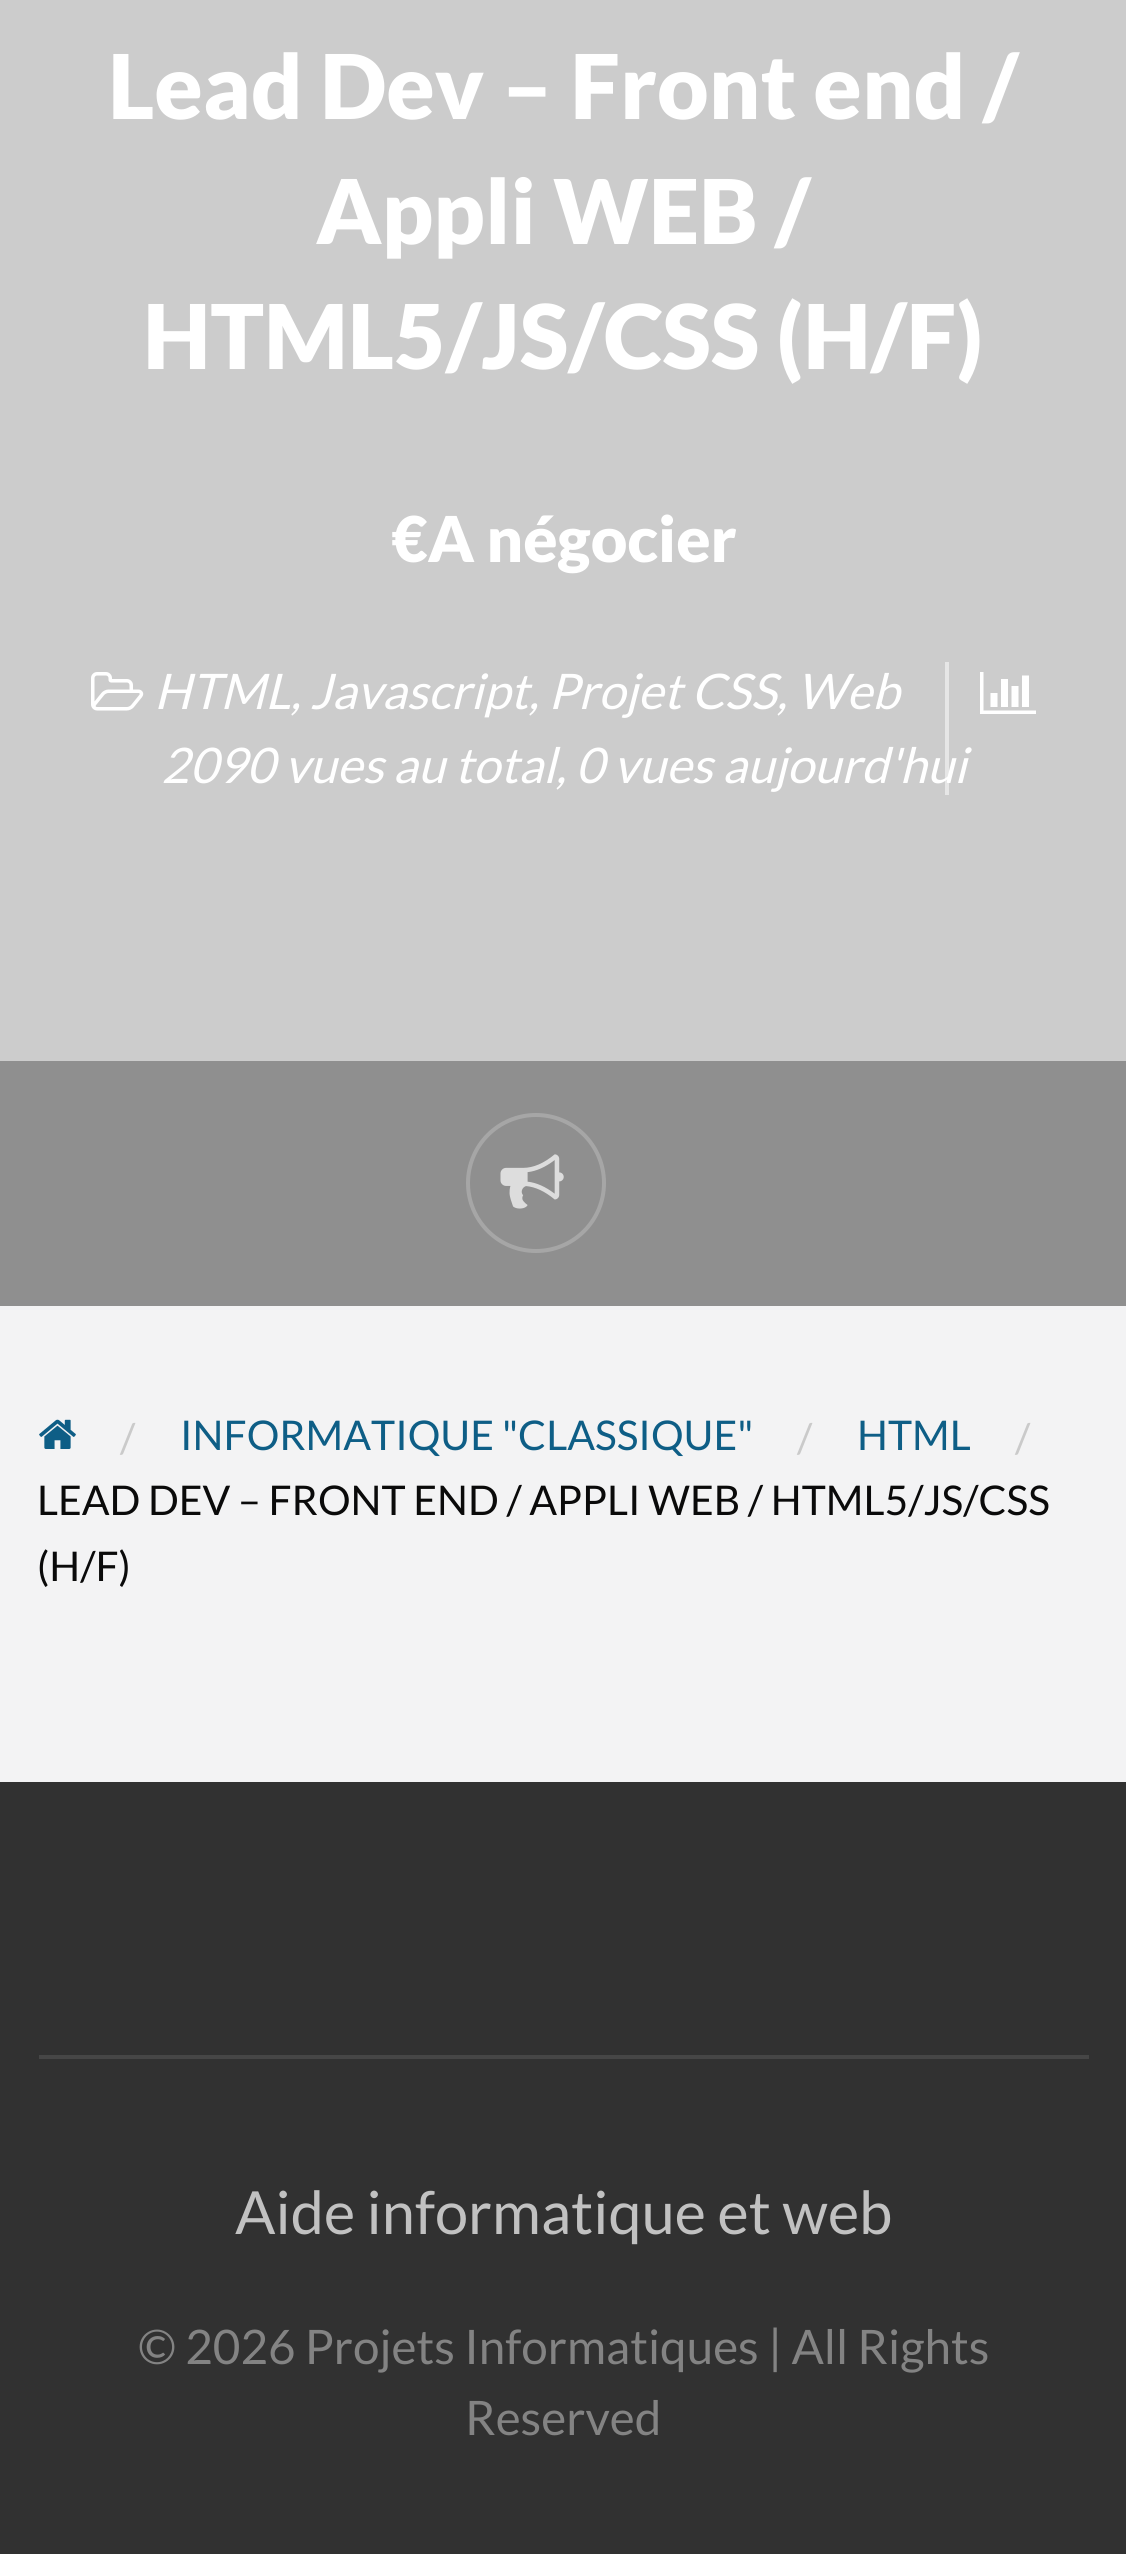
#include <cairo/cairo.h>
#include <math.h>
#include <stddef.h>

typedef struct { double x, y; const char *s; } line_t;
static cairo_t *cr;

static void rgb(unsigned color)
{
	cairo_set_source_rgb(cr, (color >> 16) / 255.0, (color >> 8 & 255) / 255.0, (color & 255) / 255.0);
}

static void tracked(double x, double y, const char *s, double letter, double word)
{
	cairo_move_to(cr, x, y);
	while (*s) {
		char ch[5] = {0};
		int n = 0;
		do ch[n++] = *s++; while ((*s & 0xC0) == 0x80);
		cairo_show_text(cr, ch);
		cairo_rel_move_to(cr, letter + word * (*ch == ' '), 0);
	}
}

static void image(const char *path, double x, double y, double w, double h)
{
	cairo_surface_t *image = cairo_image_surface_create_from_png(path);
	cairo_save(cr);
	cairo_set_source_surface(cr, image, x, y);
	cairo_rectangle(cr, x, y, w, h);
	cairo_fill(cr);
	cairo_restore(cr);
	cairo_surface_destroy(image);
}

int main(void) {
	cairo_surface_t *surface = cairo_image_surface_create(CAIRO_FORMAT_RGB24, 1126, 2554);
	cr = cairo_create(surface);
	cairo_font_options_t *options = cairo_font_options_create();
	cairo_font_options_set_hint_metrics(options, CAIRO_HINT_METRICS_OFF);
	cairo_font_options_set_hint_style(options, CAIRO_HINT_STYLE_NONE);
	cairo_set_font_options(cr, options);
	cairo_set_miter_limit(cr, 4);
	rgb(0xf3f3f4);
	cairo_paint(cr);
	rgb(0xcccccc);
	cairo_rectangle(cr, 0, 0, 1126, 1061);
	cairo_fill(cr);
	image("img/1.png", 91, 672, 53, 39);
	image("img/2.png", 980, 672, 56, 42);
	rgb(0x8f8f8f);
	cairo_rectangle(cr, 0, 1061, 1126, 245);
	cairo_fill(cr);
	cairo_arc(cr, 536, 1183, 68, 0, 2 * M_PI);
	rgb(0xa6a6a6);
	cairo_set_line_width(cr, 4);
	cairo_stroke(cr);
	image("img/3.png", 500, 1154, 64, 55);
	image("img/4.png", 39, 1419, 37, 30);
	rgb(0x313131);
	cairo_rectangle(cr, 0, 1782, 1126, 772);
	cairo_fill(cr);
	rgb(0x464646);
	cairo_rectangle(cr, 39, 2055, 1050, 4);
	cairo_fill(cr);
	cairo_select_font_face(cr, "Lato Black", CAIRO_FONT_SLANT_NORMAL, CAIRO_FONT_WEIGHT_NORMAL);
	cairo_set_font_size(cr, 89.25);
	rgb(0xffffff);
	{
		static const line_t items[] = {
			{108, 119, "Lead Dev – Front end /"},
			{316, 244, "Appli WEB /"},
			{143, 369, "HTML5/JS/CSS (H/F)"},
		};
		for (size_t i = 0; i < sizeof items / sizeof *items; i++) {
			cairo_move_to(cr, items[i].x, items[i].y);
			cairo_show_text(cr, items[i].s);
		}
	}
	cairo_set_font_size(cr, 63.25);
	cairo_move_to(cr, 391, 562);
	cairo_show_text(cr, "€A négocier");
	cairo_select_font_face(cr, "Lato", CAIRO_FONT_SLANT_ITALIC, CAIRO_FONT_WEIGHT_NORMAL);
	cairo_set_font_size(cr, 49);
	cairo_move_to(cr, 154, 709);
	cairo_show_text(cr, "HTML, Javascript, Projet CSS, Web");
	cairo_move_to(cr, 161, 783);
	cairo_show_text(cr, "2090 vues au total, 0 vues aujourd'hui");
	cairo_set_source_rgba(cr, 1, 1, 1, 0.5);
	cairo_rectangle(cr, 945, 662, 4, 133);
	cairo_fill(cr);
	cairo_select_font_face(cr, "Lato", CAIRO_FONT_SLANT_NORMAL, CAIRO_FONT_WEIGHT_NORMAL);
	cairo_set_font_size(cr, 40.9);
	rgb(0xcacaca);
	cairo_move_to(cr, 120, 1453);
	cairo_show_text(cr, "/");
	rgb(0x0e5e86);
	cairo_move_to(cr, 180, 1450);
	cairo_show_text(cr, "INFORMATIQUE \"CLASSIQUE\"");
	rgb(0xcacaca);
	cairo_move_to(cr, 797, 1453);
	cairo_show_text(cr, "/");
	rgb(0x0e5e86);
	cairo_move_to(cr, 857, 1450);
	cairo_show_text(cr, "HTML");
	rgb(0xcacaca);
	cairo_move_to(cr, 1015, 1453);
	cairo_show_text(cr, "/");
	rgb(0x0a0a0a);
	tracked(37, 1515, "LEAD DEV – FRONT END / APPLI WEB / HTML5/JS/CSS", 0, -0.25);
	cairo_move_to(cr, 37, 1581);
	cairo_show_text(cr, "(H/F)");
	cairo_set_font_size(cr, 59.5);
	rgb(0xc1c1c1);
	cairo_move_to(cr, 235, 2234);
	cairo_show_text(cr, "Aide informatique et web");
	cairo_set_font_size(cr, 47.6);
	rgb(0x838383);
	cairo_move_to(cr, 138, 2364);
	cairo_show_text(cr, "© 2026 Projets Informatiques | All Rights");
	cairo_move_to(cr, 465, 2435);
	cairo_show_text(cr, "Reserved");
	cairo_surface_write_to_png(surface, "page.png");
	cairo_font_options_destroy(options);
	cairo_destroy(cr);
	cairo_surface_destroy(surface);
	return 0;
}
